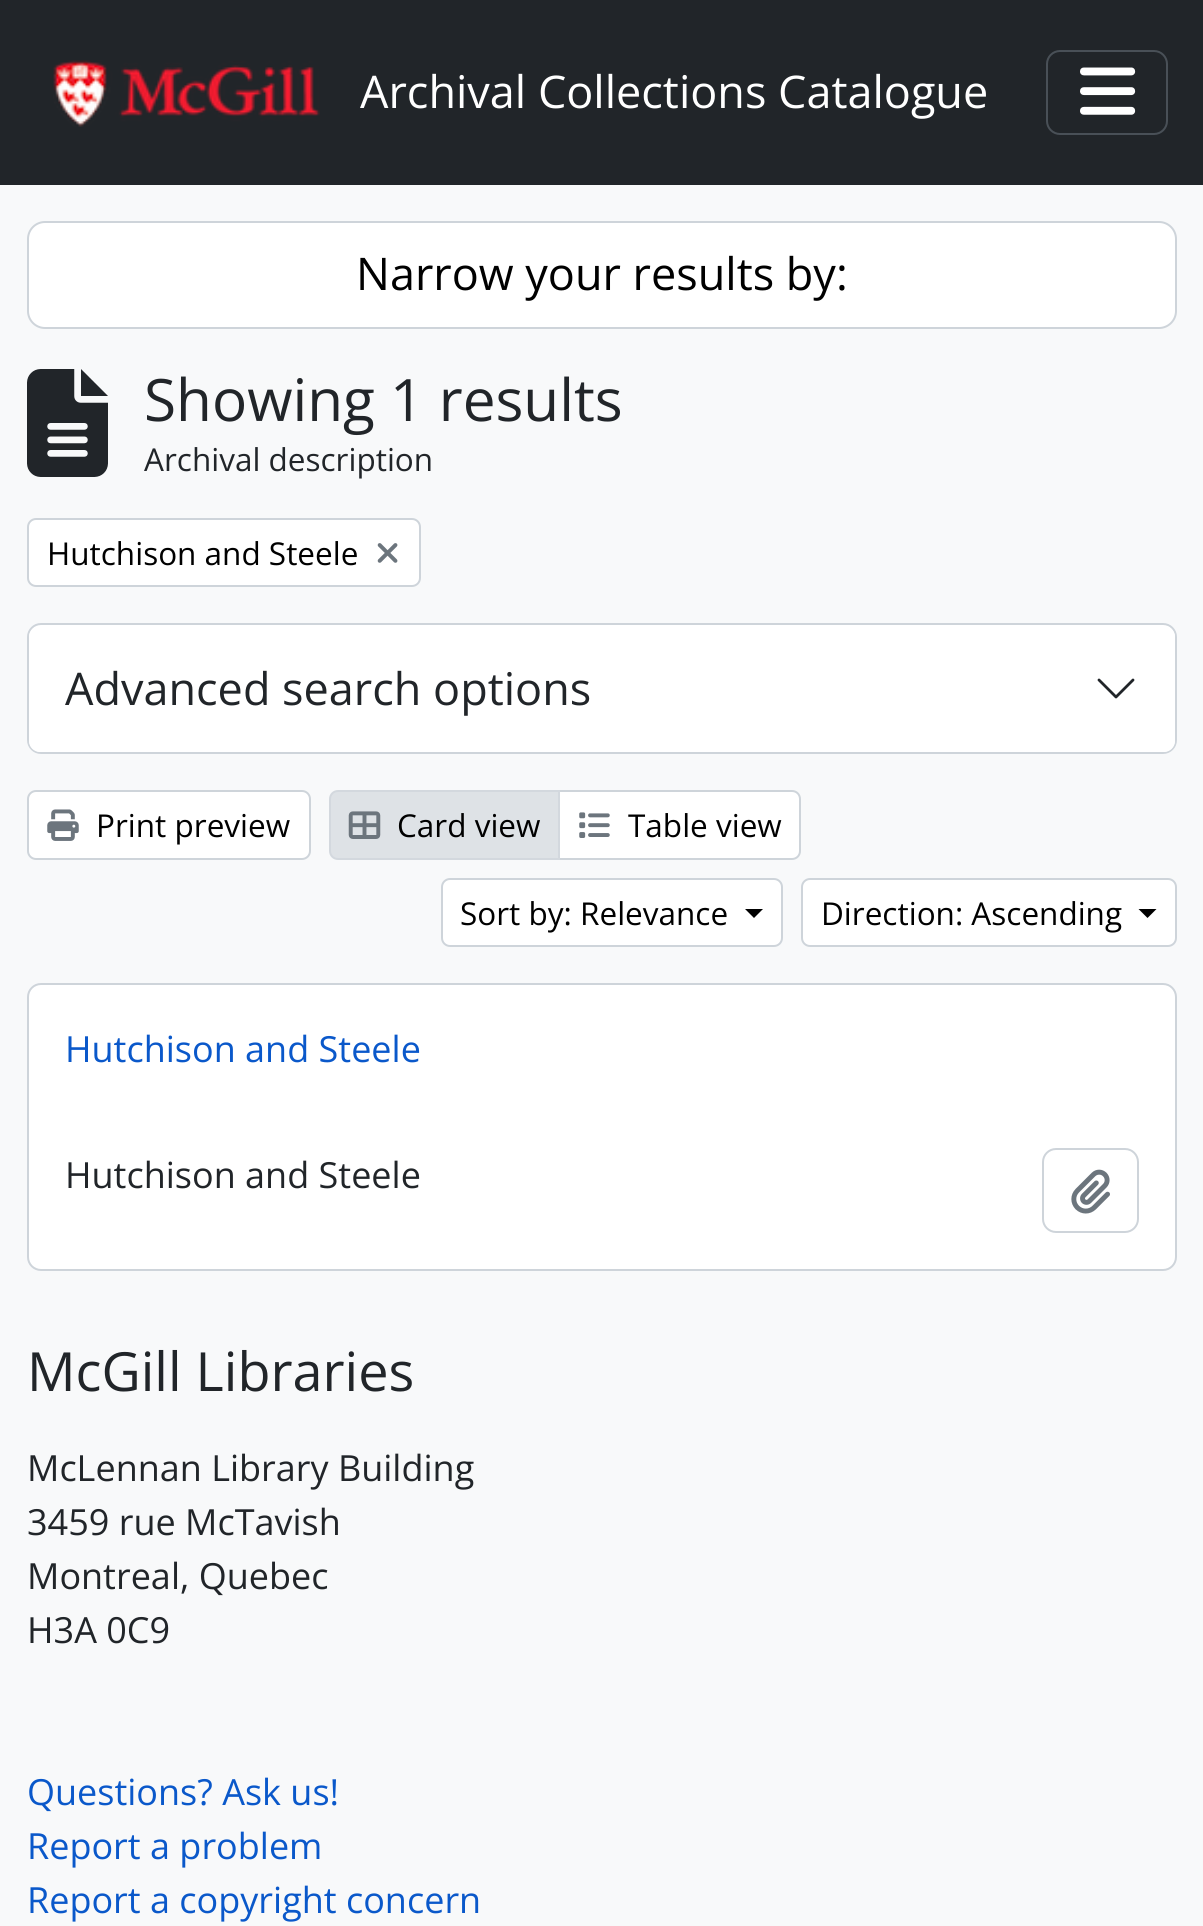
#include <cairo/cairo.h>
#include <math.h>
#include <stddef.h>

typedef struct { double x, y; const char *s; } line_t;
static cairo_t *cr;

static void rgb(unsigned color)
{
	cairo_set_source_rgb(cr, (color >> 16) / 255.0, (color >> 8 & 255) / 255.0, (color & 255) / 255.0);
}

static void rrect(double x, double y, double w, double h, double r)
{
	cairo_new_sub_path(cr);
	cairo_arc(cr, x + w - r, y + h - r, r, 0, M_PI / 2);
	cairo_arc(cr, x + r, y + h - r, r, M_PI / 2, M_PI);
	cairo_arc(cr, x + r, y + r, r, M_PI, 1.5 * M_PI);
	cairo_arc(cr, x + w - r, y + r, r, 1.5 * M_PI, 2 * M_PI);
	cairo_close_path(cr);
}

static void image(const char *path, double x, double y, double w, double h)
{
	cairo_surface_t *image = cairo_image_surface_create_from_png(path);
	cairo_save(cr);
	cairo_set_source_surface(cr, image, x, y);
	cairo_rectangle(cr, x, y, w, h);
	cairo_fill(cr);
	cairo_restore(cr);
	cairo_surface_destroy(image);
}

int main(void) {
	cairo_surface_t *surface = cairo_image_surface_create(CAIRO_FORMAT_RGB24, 1203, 1926);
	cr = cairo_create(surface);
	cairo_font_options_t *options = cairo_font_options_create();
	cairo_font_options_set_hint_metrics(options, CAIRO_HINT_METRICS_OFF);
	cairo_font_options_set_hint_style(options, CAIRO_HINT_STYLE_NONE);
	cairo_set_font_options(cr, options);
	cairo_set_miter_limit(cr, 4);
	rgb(0xf8f9fa);
	cairo_paint(cr);
	rgb(0x212529);
	cairo_rectangle(cr, 0, 0, 1203, 185);
	cairo_fill(cr);
	image("img/1.png", 53, 60, 267, 67);
	rrect(1047, 51, 120, 83, 13);
	rgb(0x495057);
	cairo_stroke(cr);
	image("img/2.png", 1080, 67, 56, 48);
	rgb(0xffffff);
	rrect(28, 222, 1148, 106, 17);
	cairo_fill_preserve(cr);
	rgb(0xced4da);
	cairo_stroke(cr);
	image("img/3.png", 27, 369, 81, 108);
	rgb(0xffffff);
	rrect(28, 519, 392, 67, 8);
	cairo_fill_preserve(cr);
	rgb(0xced4da);
	cairo_stroke(cr);
	image("img/4.png", 377, 543, 21, 20);
	rgb(0xffffff);
	rrect(28, 624, 1148, 129, 13);
	cairo_fill_preserve(cr);
	rgb(0xced4da);
	cairo_stroke(cr);
	rgb(0xffffff);
	rrect(29, 626, 1146, 126, 11);
	cairo_fill(cr);
	cairo_new_path(cr);
	cairo_move_to(cr, 1099, 680);
	cairo_line_to(cr, 1116, 697);
	cairo_line_to(cr, 1133, 680);
	rgb(0x212529);
	cairo_set_line_width(cr, 2.8);
	cairo_set_line_cap(cr, CAIRO_LINE_CAP_ROUND);
	cairo_set_line_join(cr, CAIRO_LINE_JOIN_ROUND);
	cairo_stroke(cr);
	rgb(0xffffff);
	rrect(28, 791, 282, 68, 8);
	cairo_fill_preserve(cr);
	rgb(0xced4da);
	cairo_set_line_width(cr, 2);
	cairo_set_line_cap(cr, CAIRO_LINE_CAP_BUTT);
	cairo_set_line_join(cr, CAIRO_LINE_JOIN_MITER);
	cairo_stroke(cr);
	image("img/5.png", 47, 809, 32, 32);
	rgb(0xffffff);
	cairo_new_path(cr);
	cairo_move_to(cr, 559, 791);
	cairo_line_to(cr, 792, 791);
	cairo_curve_to(cr, 796.5, 791, 800, 794.5, 800, 799);
	cairo_line_to(cr, 800, 851);
	cairo_curve_to(cr, 800, 855.5, 796.5, 859, 792, 859);
	cairo_line_to(cr, 559, 859);
	cairo_close_path(cr);
	cairo_fill_preserve(cr);
	rgb(0xced4da);
	cairo_stroke(cr);
	rgb(0xdee2e6);
	cairo_new_path(cr);
	cairo_move_to(cr, 338, 791);
	cairo_line_to(cr, 559, 791);
	cairo_line_to(cr, 559, 859);
	cairo_line_to(cr, 338, 859);
	cairo_curve_to(cr, 333.5, 859, 330, 855.5, 330, 851);
	cairo_line_to(cr, 330, 799);
	cairo_curve_to(cr, 330, 794.5, 333.5, 791, 338, 791);
	cairo_close_path(cr);
	cairo_fill_preserve(cr);
	rgb(0xd3d8de);
	cairo_stroke(cr);
	image("img/6.png", 348, 811, 33, 28);
	image("img/7.png", 579, 812, 31, 26);
	rgb(0xffffff);
	rrect(442, 879, 340, 67, 8);
	cairo_fill_preserve(cr);
	rgb(0xced4da);
	cairo_stroke(cr);
	rgb(0x000000);
	cairo_new_path(cr);
	cairo_move_to(cr, 745, 909);
	cairo_line_to(cr, 763, 909);
	cairo_line_to(cr, 754, 918);
	cairo_close_path(cr);
	cairo_fill(cr);
	rgb(0xffffff);
	rrect(802, 879, 374, 67, 8);
	cairo_fill_preserve(cr);
	rgb(0xced4da);
	cairo_stroke(cr);
	rgb(0x000000);
	cairo_new_path(cr);
	cairo_move_to(cr, 1138.5, 909);
	cairo_line_to(cr, 1156.5, 909);
	cairo_line_to(cr, 1147.5, 918);
	cairo_close_path(cr);
	cairo_fill(cr);
	rgb(0xffffff);
	rrect(28, 984, 1148, 286, 13);
	cairo_fill_preserve(cr);
	rgb(0xced4da);
	cairo_stroke(cr);
	rrect(1043, 1149, 95, 83, 13);
	cairo_stroke(cr);
	image("img/8.png", 1071, 1169, 39, 45);
	cairo_select_font_face(cr, "Open Sans", CAIRO_FONT_SLANT_NORMAL, CAIRO_FONT_WEIGHT_NORMAL);
	cairo_set_font_size(cr, 45);
	rgb(0xffffff);
	cairo_move_to(cr, 360, 108);
	cairo_show_text(cr, "Archival Collections Catalogue");
	rgb(0x000000);
	cairo_move_to(cr, 356, 290);
	cairo_show_text(cr, "Narrow your results by:");
	cairo_set_font_size(cr, 58.5);
	rgb(0x212529);
	cairo_move_to(cr, 144, 421);
	cairo_show_text(cr, "Showing 1 results");
	cairo_set_font_size(cr, 31.5);
	cairo_move_to(cr, 144, 471);
	cairo_show_text(cr, "Archival description");
	rgb(0x000000);
	cairo_move_to(cr, 47, 565);
	cairo_show_text(cr, "Hutchison and Steele");
	cairo_set_font_size(cr, 45);
	rgb(0x212529);
	cairo_move_to(cr, 65, 705);
	cairo_show_text(cr, "Advanced search options");
	cairo_set_font_size(cr, 31.5);
	rgb(0x000000);
	{
		static const line_t items[] = {
			{96, 837, "Print preview"},
			{397, 837, "Card view"},
			{628, 837, "Table view"},
			{460, 925, "Sort by: Relevance"},
			{821, 925, "Direction: Ascending"},
		};
		for (size_t i = 0; i < sizeof items / sizeof *items; i++) {
			cairo_move_to(cr, items[i].x, items[i].y);
			cairo_show_text(cr, items[i].s);
		}
	}
	cairo_set_font_size(cr, 36);
	rgb(0x0a58ca);
	cairo_move_to(cr, 65, 1062);
	cairo_show_text(cr, "Hutchison and Steele");
	rgb(0x212529);
	cairo_move_to(cr, 65, 1188);
	cairo_show_text(cr, "Hutchison and Steele");
	cairo_set_font_size(cr, 54);
	cairo_move_to(cr, 27, 1391);
	cairo_show_text(cr, "McGill Libraries");
	cairo_set_font_size(cr, 36);
	{
		static const line_t items[] = {
			{27, 1481, "McLennan Library Building"},
			{27, 1535, "3459 rue McTavish"},
			{27, 1589, "Montreal, Quebec"},
			{27, 1643, "H3A 0C9"},
		};
		for (size_t i = 0; i < sizeof items / sizeof *items; i++) {
			cairo_move_to(cr, items[i].x, items[i].y);
			cairo_show_text(cr, items[i].s);
		}
	}
	rgb(0x0a58ca);
	{
		static const line_t items[] = {
			{27, 1805, "Questions? Ask us!"},
			{27, 1859, "Report a problem"},
			{27, 1913, "Report a copyright concern"},
		};
		for (size_t i = 0; i < sizeof items / sizeof *items; i++) {
			cairo_move_to(cr, items[i].x, items[i].y);
			cairo_show_text(cr, items[i].s);
		}
	}
	cairo_surface_write_to_png(surface, "page.png");
	cairo_font_options_destroy(options);
	cairo_destroy(cr);
	cairo_surface_destroy(surface);
	return 0;
}
